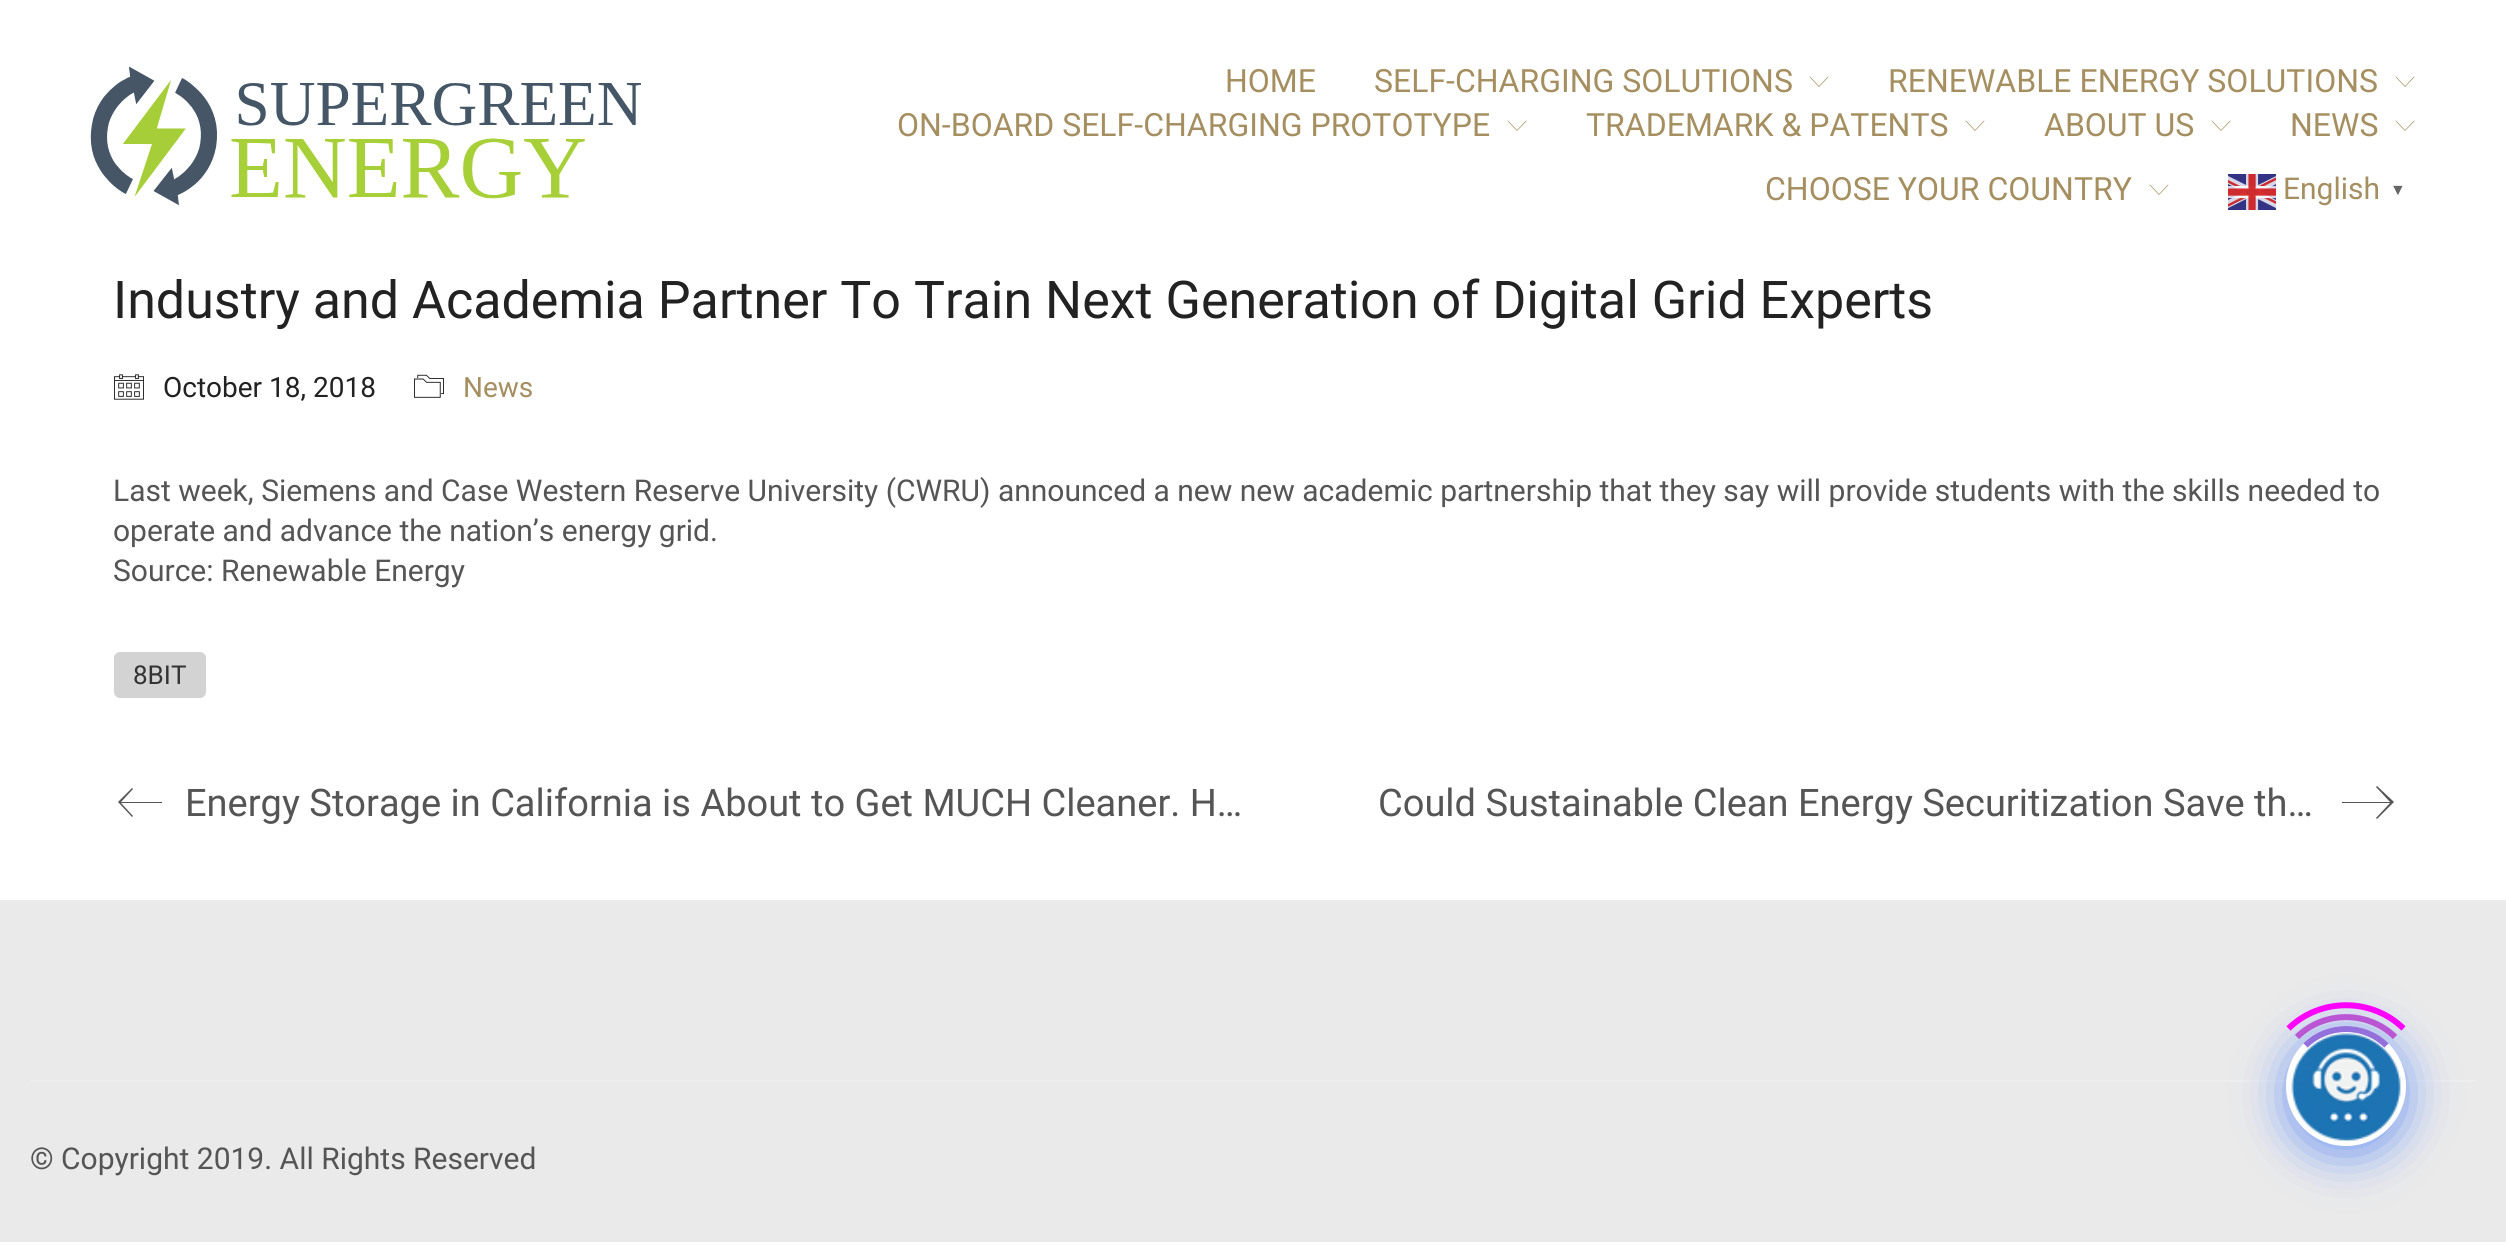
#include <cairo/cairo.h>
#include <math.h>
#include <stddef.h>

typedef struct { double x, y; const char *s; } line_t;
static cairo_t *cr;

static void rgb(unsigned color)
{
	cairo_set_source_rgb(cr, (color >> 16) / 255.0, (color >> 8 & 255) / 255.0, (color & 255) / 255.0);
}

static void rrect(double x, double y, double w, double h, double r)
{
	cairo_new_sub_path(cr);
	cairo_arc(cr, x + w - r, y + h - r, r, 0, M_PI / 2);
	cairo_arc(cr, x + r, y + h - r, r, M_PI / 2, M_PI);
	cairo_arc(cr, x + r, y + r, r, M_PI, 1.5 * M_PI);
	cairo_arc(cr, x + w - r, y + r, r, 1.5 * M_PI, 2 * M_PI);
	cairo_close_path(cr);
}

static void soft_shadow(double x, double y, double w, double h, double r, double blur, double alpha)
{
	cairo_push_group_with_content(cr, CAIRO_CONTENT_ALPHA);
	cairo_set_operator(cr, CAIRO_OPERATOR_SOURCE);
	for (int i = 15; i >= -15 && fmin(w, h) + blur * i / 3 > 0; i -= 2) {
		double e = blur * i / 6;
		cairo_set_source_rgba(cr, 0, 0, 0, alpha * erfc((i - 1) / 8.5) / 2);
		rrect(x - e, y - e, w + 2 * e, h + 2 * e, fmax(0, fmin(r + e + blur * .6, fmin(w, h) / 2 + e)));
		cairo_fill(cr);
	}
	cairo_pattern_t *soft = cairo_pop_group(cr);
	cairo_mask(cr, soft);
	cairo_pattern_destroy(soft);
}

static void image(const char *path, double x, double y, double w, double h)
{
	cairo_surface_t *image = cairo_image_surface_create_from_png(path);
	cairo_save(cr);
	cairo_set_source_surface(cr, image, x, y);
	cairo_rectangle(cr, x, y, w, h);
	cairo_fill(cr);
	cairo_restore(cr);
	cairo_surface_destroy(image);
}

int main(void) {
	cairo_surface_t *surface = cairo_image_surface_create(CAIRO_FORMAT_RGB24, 2506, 1245);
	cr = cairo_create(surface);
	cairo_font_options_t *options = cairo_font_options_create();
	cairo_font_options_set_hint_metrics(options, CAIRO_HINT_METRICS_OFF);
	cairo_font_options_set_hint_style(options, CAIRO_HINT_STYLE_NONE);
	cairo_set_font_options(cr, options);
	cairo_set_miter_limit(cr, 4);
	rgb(0xffffff);
	cairo_paint(cr);
	image("img/1.png", 90, 66, 551, 140);
	rgb(0xa58f60);
	cairo_new_path(cr);
	cairo_move_to(cr, 1819, 87);
	cairo_line_to(cr, 1809.5, 77);
	cairo_line_to(cr, 1810, 76.5);
	cairo_line_to(cr, 1819, 86);
	cairo_line_to(cr, 1828, 76.5);
	cairo_line_to(cr, 1828.5, 77);
	cairo_close_path(cr);
	cairo_fill(cr);
	cairo_new_path(cr);
	cairo_move_to(cr, 2405, 87);
	cairo_line_to(cr, 2395.5, 77);
	cairo_line_to(cr, 2396, 76.5);
	cairo_line_to(cr, 2405, 86);
	cairo_line_to(cr, 2414, 76.5);
	cairo_line_to(cr, 2414.5, 77);
	cairo_close_path(cr);
	cairo_fill(cr);
	cairo_new_path(cr);
	cairo_move_to(cr, 1517, 131);
	cairo_line_to(cr, 1507.5, 121);
	cairo_line_to(cr, 1508, 120.5);
	cairo_line_to(cr, 1517, 130);
	cairo_line_to(cr, 1526, 120.5);
	cairo_line_to(cr, 1526.5, 121);
	cairo_close_path(cr);
	cairo_fill(cr);
	cairo_new_path(cr);
	cairo_move_to(cr, 1975, 131);
	cairo_line_to(cr, 1965.5, 121);
	cairo_line_to(cr, 1966, 120.5);
	cairo_line_to(cr, 1975, 130);
	cairo_line_to(cr, 1984, 120.5);
	cairo_line_to(cr, 1984.5, 121);
	cairo_close_path(cr);
	cairo_fill(cr);
	cairo_new_path(cr);
	cairo_move_to(cr, 2221, 131);
	cairo_line_to(cr, 2211.5, 121);
	cairo_line_to(cr, 2212, 120.5);
	cairo_line_to(cr, 2221, 130);
	cairo_line_to(cr, 2230, 120.5);
	cairo_line_to(cr, 2230.5, 121);
	cairo_close_path(cr);
	cairo_fill(cr);
	cairo_new_path(cr);
	cairo_move_to(cr, 2405, 131);
	cairo_line_to(cr, 2395.5, 121);
	cairo_line_to(cr, 2396, 120.5);
	cairo_line_to(cr, 2405, 130);
	cairo_line_to(cr, 2414, 120.5);
	cairo_line_to(cr, 2414.5, 121);
	cairo_close_path(cr);
	cairo_fill(cr);
	cairo_new_path(cr);
	cairo_move_to(cr, 2159, 195);
	cairo_line_to(cr, 2149.5, 185);
	cairo_line_to(cr, 2150, 184.5);
	cairo_line_to(cr, 2159, 194);
	cairo_line_to(cr, 2168, 184.5);
	cairo_line_to(cr, 2168.5, 185);
	cairo_close_path(cr);
	cairo_fill(cr);
	image("img/2.png", 2228, 174, 48, 36);
	image("img/3.png", 114, 374, 30, 26);
	image("img/4.png", 414, 374, 30, 24);
	rgb(0xd3d3d3);
	rrect(114, 652, 92, 46, 6);
	cairo_fill(cr);
	rgb(0x555555);
	cairo_new_path(cr);
	cairo_move_to(cr, 162, 802);
	cairo_line_to(cr, 121, 802);
	cairo_line_to(cr, 133, 789);
	cairo_line_to(cr, 132, 788);
	cairo_line_to(cr, 118, 802);
	cairo_line_to(cr, 132, 817);
	cairo_line_to(cr, 133, 816);
	cairo_line_to(cr, 121, 803);
	cairo_line_to(cr, 162, 803);
	cairo_close_path(cr);
	cairo_fill(cr);
	cairo_new_path(cr);
	cairo_move_to(cr, 2377, 786);
	cairo_line_to(cr, 2376, 787);
	cairo_line_to(cr, 2390, 802);
	cairo_line_to(cr, 2342, 802);
	cairo_line_to(cr, 2342, 803);
	cairo_line_to(cr, 2390, 803);
	cairo_line_to(cr, 2376, 818);
	cairo_line_to(cr, 2377, 819);
	cairo_line_to(cr, 2394, 802);
	cairo_close_path(cr);
	cairo_fill(cr);
	rgb(0xeaeaea);
	cairo_rectangle(cr, 0, 900, 2506, 342);
	cairo_fill(cr);
	rgb(0xeeeeee);
	cairo_rectangle(cr, 30, 1080, 2446, 2);
	cairo_fill(cr);
	rgb(0x004dff);
	soft_shadow(2286, 1034, 120, 120, 60, 24, 0.5);
	rgb(0xffffff);
	cairo_arc(cr, 2346, 1086, 60, 0, 2 * M_PI);
	cairo_fill(cr);
	image("img/5.png", 2291, 1033, 110, 108);
	cairo_new_path(cr);
	cairo_move_to(cr, 2305.5, 1045.5);
	cairo_curve_to(cr, 2327.5, 1023.5, 2364.5, 1023.5, 2386.5, 1045.5);
	rgb(0x9370db);
	cairo_set_line_width(cr, 6);
	cairo_stroke(cr);
	cairo_new_path(cr);
	cairo_move_to(cr, 2297, 1037);
	cairo_curve_to(cr, 2324, 1010.5, 2368, 1010.5, 2395, 1037);
	rgb(0xba55d3);
	cairo_stroke(cr);
	cairo_new_path(cr);
	cairo_move_to(cr, 2288.5, 1028.5);
	cairo_curve_to(cr, 2320, 997.5, 2372, 997.5, 2403.5, 1028.5);
	rgb(0xff00ff);
	cairo_stroke(cr);
	cairo_select_font_face(cr, "Roboto", CAIRO_FONT_SLANT_NORMAL, CAIRO_FONT_WEIGHT_NORMAL);
	cairo_set_font_size(cr, 32);
	rgb(0xa58f60);
	{
		static const line_t items[] = {
			{1225, 92, "HOME"},
			{1374, 92, "SELF-CHARGING SOLUTIONS"},
			{1888, 92, "RENEWABLE ENERGY SOLUTIONS"},
			{897, 136, "ON-BOARD SELF-CHARGING PROTOTYPE"},
			{1586, 136, "TRADEMARK & PATENTS"},
			{2044, 136, "ABOUT US"},
			{2290, 136, "NEWS"},
			{1765, 200, "CHOOSE YOUR COUNTRY"},
		};
		for (size_t i = 0; i < sizeof items / sizeof *items; i++) {
			cairo_move_to(cr, items[i].x, items[i].y);
			cairo_show_text(cr, items[i].s);
		}
	}
	cairo_set_font_size(cr, 30);
	cairo_move_to(cr, 2283, 199);
	cairo_show_text(cr, "English");
	cairo_select_font_face(cr, "Liberation Sans", CAIRO_FONT_SLANT_NORMAL, CAIRO_FONT_WEIGHT_BOLD);
	cairo_set_font_size(cr, 16);
	rgb(0x666666);
	cairo_move_to(cr, 2390, 195);
	cairo_show_text(cr, "▼");
	cairo_select_font_face(cr, "Roboto", CAIRO_FONT_SLANT_NORMAL, CAIRO_FONT_WEIGHT_NORMAL);
	cairo_set_font_size(cr, 52);
	rgb(0x222222);
	cairo_move_to(cr, 113, 318);
	cairo_show_text(cr, "Industry and Academia Partner To Train Next Generation of Digital Grid Experts");
	cairo_set_font_size(cr, 28);
	cairo_move_to(cr, 163, 397);
	cairo_show_text(cr, "October 18, 2018");
	rgb(0xa58f60);
	cairo_move_to(cr, 463, 397);
	cairo_show_text(cr, "News");
	cairo_set_font_size(cr, 30);
	rgb(0x555555);
	{
		static const line_t items[] = {
			{113, 501, "Last week, Siemens and Case Western Reserve University (CWRU) announced a new new academic partnership that they say will provide students with the skills needed to"},
			{113, 541, "operate and advance the nation’s energy grid."},
			{113, 581, "Source: Renewable Energy"},
		};
		for (size_t i = 0; i < sizeof items / sizeof *items; i++) {
			cairo_move_to(cr, items[i].x, items[i].y);
			cairo_show_text(cr, items[i].s);
		}
	}
	cairo_set_font_size(cr, 26);
	rgb(0x333333);
	cairo_move_to(cr, 133, 684);
	cairo_show_text(cr, "8BIT");
	cairo_set_font_size(cr, 38);
	rgb(0x555555);
	cairo_move_to(cr, 185, 816);
	cairo_show_text(cr, "Energy Storage in California is About to Get MUCH Cleaner. H…");
	cairo_move_to(cr, 1378, 816);
	cairo_show_text(cr, "Could Sustainable Clean Energy Securitization Save th…");
	cairo_set_font_size(cr, 30);
	cairo_move_to(cr, 30, 1169);
	cairo_show_text(cr, "© Copyright 2019. All Rights Reserved");
	cairo_surface_write_to_png(surface, "page.png");
	cairo_font_options_destroy(options);
	cairo_destroy(cr);
	cairo_surface_destroy(surface);
	return 0;
}
